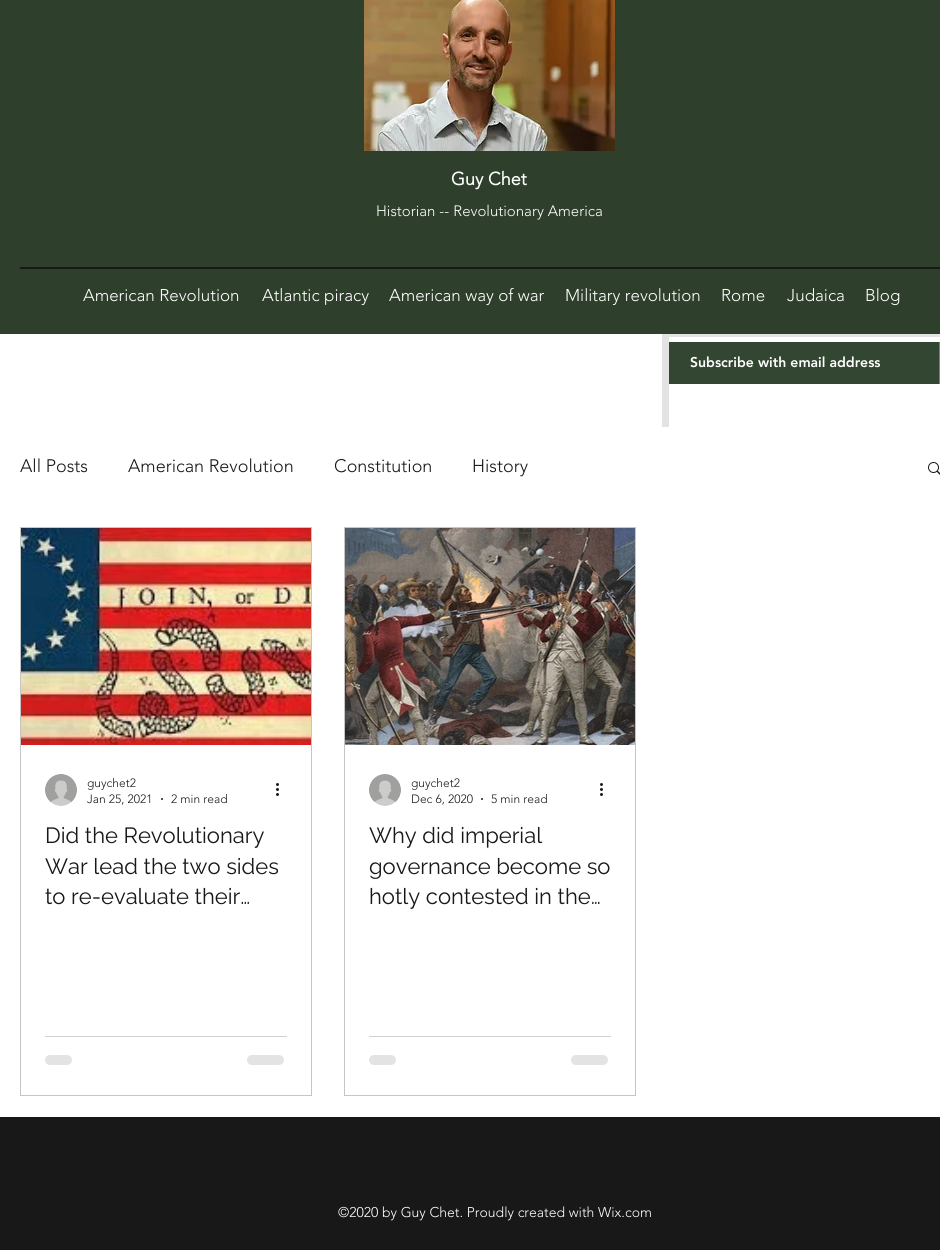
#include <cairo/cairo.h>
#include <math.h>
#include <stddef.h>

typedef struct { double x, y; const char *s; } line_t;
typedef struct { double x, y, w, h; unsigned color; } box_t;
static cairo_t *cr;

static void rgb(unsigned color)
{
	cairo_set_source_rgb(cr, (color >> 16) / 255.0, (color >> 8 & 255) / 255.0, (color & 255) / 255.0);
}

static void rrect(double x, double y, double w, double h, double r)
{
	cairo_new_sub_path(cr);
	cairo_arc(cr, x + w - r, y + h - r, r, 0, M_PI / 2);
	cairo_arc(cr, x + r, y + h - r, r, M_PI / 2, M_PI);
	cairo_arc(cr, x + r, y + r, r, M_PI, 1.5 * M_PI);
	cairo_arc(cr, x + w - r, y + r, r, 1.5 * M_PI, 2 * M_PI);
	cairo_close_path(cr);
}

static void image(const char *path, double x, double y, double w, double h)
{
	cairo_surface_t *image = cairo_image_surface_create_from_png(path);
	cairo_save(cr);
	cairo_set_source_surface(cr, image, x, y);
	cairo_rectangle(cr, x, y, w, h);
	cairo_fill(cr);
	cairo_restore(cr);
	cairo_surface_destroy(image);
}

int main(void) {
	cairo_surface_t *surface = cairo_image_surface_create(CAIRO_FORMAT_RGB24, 940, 1250);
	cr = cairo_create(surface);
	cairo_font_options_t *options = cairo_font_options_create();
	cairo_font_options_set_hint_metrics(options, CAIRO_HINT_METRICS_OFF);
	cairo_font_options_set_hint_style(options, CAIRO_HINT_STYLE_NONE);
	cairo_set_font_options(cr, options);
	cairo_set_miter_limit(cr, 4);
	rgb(0xffffff);
	cairo_paint(cr);
	cairo_rectangle(cr, 665.5, 333.5, 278, 105);
	rgb(0xe3e3e3);
	cairo_set_line_width(cr, 7);
	cairo_stroke(cr);
	rgb(0x2e3f2c);
	cairo_rectangle(cr, 0, 0, 940, 334);
	cairo_fill(cr);
	image("img/1.png", 364, 0, 251, 151);
	{
		static const box_t items[] = {
			{20, 267, 920, 2, 0x181818},
			{669, 342, 270, 42, 0x334631},
			{939, 342, 1, 42, 0x688e63},
			{662, 427, 278, 15, 0xffffff},
		};
		for (size_t i = 0; i < sizeof items / sizeof *items; i++) {
			rgb(items[i].color);
			cairo_rectangle(cr, items[i].x, items[i].y, items[i].w, items[i].h);
			cairo_fill(cr);
		}
	}
	image("img/2.png", 928, 462, 12, 13);
	cairo_rectangle(cr, 20.5, 527.5, 291, 568);
	rgb(0xc5c5c5);
	cairo_set_line_width(cr, 1);
	cairo_stroke(cr);
	image("img/3.png", 21, 528, 290, 217);
	image("img/4.png", 45, 774, 32, 32);
	rgb(0x181818);
	cairo_arc(cr, 162, 799, 1, 0, 2 * M_PI);
	cairo_fill(cr);
	image("img/5.png", 276, 783, 3, 13);
	rgb(0xd1d1d1);
	cairo_rectangle(cr, 45, 1036, 242, 1);
	cairo_fill(cr);
	rgb(0xe3e3e3);
	rrect(45, 1055, 27, 10, 5);
	cairo_fill(cr);
	rrect(247, 1055, 37, 10, 5);
	cairo_fill(cr);
	cairo_rectangle(cr, 344.5, 527.5, 291, 568);
	rgb(0xc5c5c5);
	cairo_stroke(cr);
	image("img/6.png", 345, 528, 290, 217);
	image("img/4.png", 369, 774, 32, 32);
	rgb(0x181818);
	cairo_arc(cr, 482, 799, 1, 0, 2 * M_PI);
	cairo_fill(cr);
	image("img/5.png", 600, 783, 3, 13);
	rgb(0xd1d1d1);
	cairo_rectangle(cr, 369, 1036, 242, 1);
	cairo_fill(cr);
	rgb(0xe3e3e3);
	rrect(369, 1055, 27, 10, 5);
	cairo_fill(cr);
	rrect(571, 1055, 37, 10, 5);
	cairo_fill(cr);
	rgb(0x181818);
	cairo_rectangle(cr, 0, 1117, 940, 133);
	cairo_fill(cr);
	cairo_select_font_face(cr, "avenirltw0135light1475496", CAIRO_FONT_SLANT_NORMAL, CAIRO_FONT_WEIGHT_BOLD);
	cairo_set_font_size(cr, 18);
	rgb(0xffffff);
	cairo_move_to(cr, 451, 185);
	cairo_show_text(cr, "Guy Chet");
	cairo_select_font_face(cr, "avenirltw0135light1475496 Light", CAIRO_FONT_SLANT_NORMAL, CAIRO_FONT_WEIGHT_NORMAL);
	cairo_set_font_size(cr, 15);
	cairo_move_to(cr, 376, 216);
	cairo_show_text(cr, "Historian -- Revolutionary America");
	cairo_set_font_size(cr, 17);
	{
		static const line_t items[] = {
			{83, 301, "American Revolution"},
			{262, 301, "Atlantic piracy"},
			{389, 301, "American way of war"},
			{565, 301, "Military revolution"},
			{721, 301, "Rome"},
			{787, 301, "Judaica"},
			{865, 301, "Blog"},
		};
		for (size_t i = 0; i < sizeof items / sizeof *items; i++) {
			cairo_move_to(cr, items[i].x, items[i].y);
			cairo_show_text(cr, items[i].s);
		}
	}
	cairo_select_font_face(cr, "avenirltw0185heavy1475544 Black", CAIRO_FONT_SLANT_NORMAL, CAIRO_FONT_WEIGHT_NORMAL);
	cairo_set_font_size(cr, 14);
	cairo_move_to(cr, 690, 367);
	cairo_show_text(cr, "Subscribe with email address");
	cairo_select_font_face(cr, "avenirltw0135light1475496 Light", CAIRO_FONT_SLANT_NORMAL, CAIRO_FONT_WEIGHT_NORMAL);
	cairo_set_font_size(cr, 18);
	rgb(0x181818);
	{
		static const line_t items[] = {
			{20, 472, "All Posts"},
			{128, 472, "American Revolution"},
			{334, 472, "Constitution"},
			{472, 472, "History"},
		};
		for (size_t i = 0; i < sizeof items / sizeof *items; i++) {
			cairo_move_to(cr, items[i].x, items[i].y);
			cairo_show_text(cr, items[i].s);
		}
	}
	cairo_set_font_size(cr, 12);
	{
		static const line_t items[] = {
			{87, 787, "guychet2"},
			{87, 803, "Jan 25, 2021"},
			{171, 803, "2 min read"},
		};
		for (size_t i = 0; i < sizeof items / sizeof *items; i++) {
			cairo_move_to(cr, items[i].x, items[i].y);
			cairo_show_text(cr, items[i].s);
		}
	}
	cairo_select_font_face(cr, "Raleway", CAIRO_FONT_SLANT_NORMAL, CAIRO_FONT_WEIGHT_NORMAL);
	cairo_set_font_size(cr, 22);
	{
		static const line_t items[] = {
			{45, 843, "Did the Revolutionary"},
			{45, 874, "War lead the two sides"},
			{45, 904, "to re-evaluate their…"},
		};
		for (size_t i = 0; i < sizeof items / sizeof *items; i++) {
			cairo_move_to(cr, items[i].x, items[i].y);
			cairo_show_text(cr, items[i].s);
		}
	}
	cairo_select_font_face(cr, "avenirltw0135light1475496 Light", CAIRO_FONT_SLANT_NORMAL, CAIRO_FONT_WEIGHT_NORMAL);
	cairo_set_font_size(cr, 12);
	{
		static const line_t items[] = {
			{411, 787, "guychet2"},
			{411, 803, "Dec 6, 2020"},
			{491, 803, "5 min read"},
		};
		for (size_t i = 0; i < sizeof items / sizeof *items; i++) {
			cairo_move_to(cr, items[i].x, items[i].y);
			cairo_show_text(cr, items[i].s);
		}
	}
	cairo_select_font_face(cr, "Raleway", CAIRO_FONT_SLANT_NORMAL, CAIRO_FONT_WEIGHT_NORMAL);
	cairo_set_font_size(cr, 22);
	{
		static const line_t items[] = {
			{369, 843, "Why did imperial"},
			{369, 874, "governance become so"},
			{369, 904, "hotly contested in the…"},
		};
		for (size_t i = 0; i < sizeof items / sizeof *items; i++) {
			cairo_move_to(cr, items[i].x, items[i].y);
			cairo_show_text(cr, items[i].s);
		}
	}
	cairo_select_font_face(cr, "avenirltw0135light1475496 Light", CAIRO_FONT_SLANT_NORMAL, CAIRO_FONT_WEIGHT_NORMAL);
	cairo_set_font_size(cr, 14);
	rgb(0xffffff);
	cairo_move_to(cr, 338, 1217);
	cairo_show_text(cr, "©2020 by Guy Chet. Proudly created with Wix.com");
	cairo_surface_write_to_png(surface, "page.png");
	cairo_font_options_destroy(options);
	cairo_destroy(cr);
	cairo_surface_destroy(surface);
	return 0;
}
